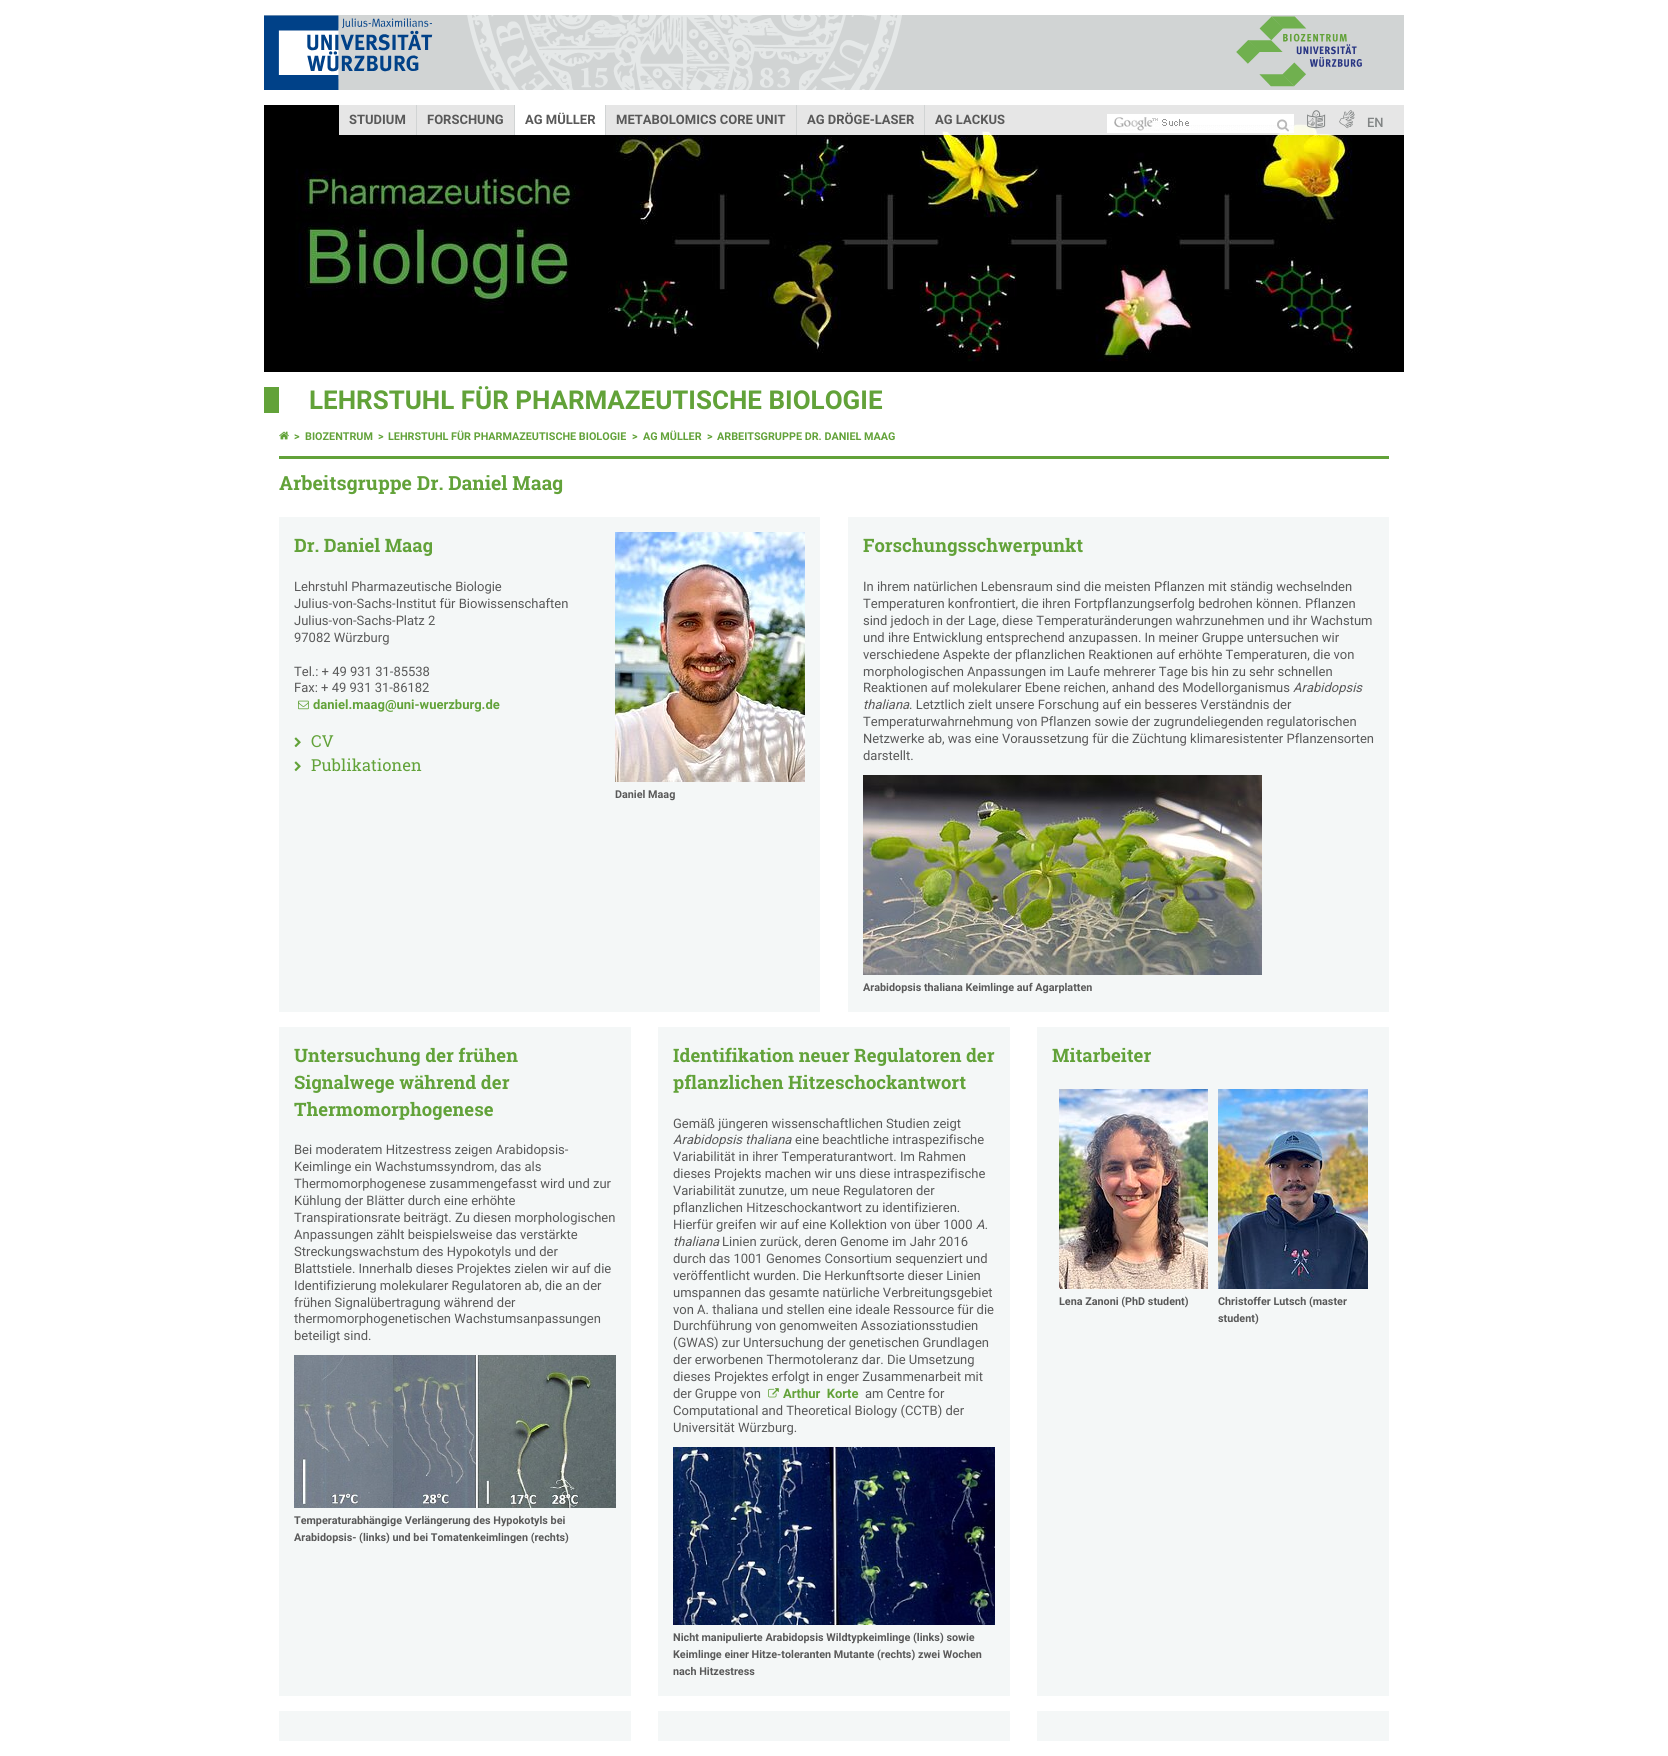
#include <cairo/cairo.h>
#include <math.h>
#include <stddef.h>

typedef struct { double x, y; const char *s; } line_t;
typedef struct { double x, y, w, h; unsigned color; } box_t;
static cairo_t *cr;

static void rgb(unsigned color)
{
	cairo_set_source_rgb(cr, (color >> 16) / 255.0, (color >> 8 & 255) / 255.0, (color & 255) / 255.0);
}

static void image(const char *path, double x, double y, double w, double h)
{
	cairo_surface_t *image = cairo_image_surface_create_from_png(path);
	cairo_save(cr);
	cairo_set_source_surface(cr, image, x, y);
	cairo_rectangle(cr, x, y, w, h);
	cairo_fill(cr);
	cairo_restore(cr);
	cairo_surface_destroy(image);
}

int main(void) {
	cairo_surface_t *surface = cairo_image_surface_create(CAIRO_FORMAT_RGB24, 1668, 1756);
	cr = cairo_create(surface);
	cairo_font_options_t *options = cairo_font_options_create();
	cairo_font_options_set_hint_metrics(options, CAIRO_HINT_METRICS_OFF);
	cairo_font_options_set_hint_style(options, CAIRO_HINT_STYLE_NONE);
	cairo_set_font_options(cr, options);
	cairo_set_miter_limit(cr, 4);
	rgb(0xffffff);
	cairo_paint(cr);
	image("img/1.png", 264, 105, 1140, 267);
	cairo_set_source_rgba(cr, 1, 1, 1, 0.9);
	cairo_rectangle(cr, 339, 105, 1065, 30);
	cairo_fill(cr);
	rgb(0xd1d4d4);
	cairo_rectangle(cr, 416, 105, 1, 30);
	cairo_fill(cr);
	rgb(0xffffff);
	cairo_rectangle(cr, 515, 105, 90, 30);
	cairo_fill(cr);
	rgb(0xd1d4d4);
	cairo_rectangle(cr, 514, 105, 1, 30);
	cairo_fill(cr);
	cairo_rectangle(cr, 605, 105, 1, 30);
	cairo_fill(cr);
	cairo_rectangle(cr, 796, 105, 1, 30);
	cairo_fill(cr);
	cairo_rectangle(cr, 924, 105, 1, 30);
	cairo_fill(cr);
	rgb(0x62a239);
	cairo_rectangle(cr, 264, 387, 15, 26);
	cairo_fill(cr);
	cairo_rectangle(cr, 279, 456, 1110, 3);
	cairo_fill(cr);
	image("img/2.png", 279, 431, 10, 9);
	rgb(0xf4f7f7);
	cairo_rectangle(cr, 279, 517, 541, 495);
	cairo_fill(cr);
	image("img/3.png", 298, 700, 11, 10);
	image("img/4.png", 294, 737, 7, 11);
	image("img/4.png", 294, 761, 7, 11);
	image("img/5.png", 615, 532, 190, 250);
	cairo_rectangle(cr, 848, 517, 541, 495);
	cairo_fill(cr);
	image("img/6.png", 863, 775, 399, 200);
	cairo_rectangle(cr, 279, 1027, 352, 669);
	cairo_fill(cr);
	image("img/7.png", 294, 1355, 322, 153);
	cairo_rectangle(cr, 658, 1027, 352, 669);
	cairo_fill(cr);
	image("img/8.png", 768, 1388, 11, 10);
	image("img/9.png", 673, 1447, 322, 178);
	cairo_rectangle(cr, 1037, 1027, 352, 669);
	cairo_fill(cr);
	image("img/10.png", 1059, 1089, 149, 200);
	image("img/11.png", 1218, 1089, 150, 200);
	{
		static const box_t items[] = {
			{279, 1711, 352, 30, 0xf4f7f7},
			{658, 1711, 352, 30, 0xf4f7f7},
			{1037, 1711, 352, 30, 0xf4f7f7},
			{264, 15, 1140, 75, 0xd1d4d4},
		};
		for (size_t i = 0; i < sizeof items / sizeof *items; i++) {
			rgb(items[i].color);
			cairo_rectangle(cr, items[i].x, items[i].y, items[i].w, items[i].h);
			cairo_fill(cr);
		}
	}
	image("img/12.png", 467, 15, 435, 75);
	image("img/13.png", 264, 15, 169, 75);
	image("img/14.png", 1236, 16, 126, 71);
	rgb(0xffffff);
	cairo_rectangle(cr, 1107, 114, 187, 19);
	cairo_fill(cr);
	image("img/15.png", 1114, 117, 180, 14);
	image("img/16.png", 1277, 119, 12, 13);
	image("img/17.png", 1307, 110, 19, 19);
	image("img/18.png", 1339, 110, 16, 19);
	cairo_select_font_face(cr, "Roboto", CAIRO_FONT_SLANT_NORMAL, CAIRO_FONT_WEIGHT_BOLD);
	cairo_set_font_size(cr, 13);
	rgb(0x595959);
	{
		static const line_t items[] = {
			{349, 124, "STUDIUM"},
			{427, 124, "FORSCHUNG"},
			{525, 124, "AG MÜLLER"},
			{616, 124, "METABOLOMICS CORE UNIT"},
			{807, 124, "AG DRÖGE-LASER"},
			{935, 124, "AG LACKUS"},
		};
		for (size_t i = 0; i < sizeof items / sizeof *items; i++) {
			cairo_move_to(cr, items[i].x, items[i].y);
			cairo_show_text(cr, items[i].s);
		}
	}
	cairo_set_font_size(cr, 26);
	rgb(0x62a239);
	cairo_move_to(cr, 309, 409);
	cairo_show_text(cr, "LEHRSTUHL FÜR PHARMAZEUTISCHE BIOLOGIE");
	cairo_set_font_size(cr, 10.8);
	{
		static const line_t items[] = {
			{294, 440, ">"},
			{305, 440, "BIOZENTRUM"},
			{378, 440, ">"},
			{388, 440, "LEHRSTUHL FÜR PHARMAZEUTISCHE BIOLOGIE"},
			{632, 440, ">"},
			{643, 440, "AG MÜLLER"},
			{707, 440, ">"},
			{717, 440, "ARBEITSGRUPPE DR. DANIEL MAAG"},
		};
		for (size_t i = 0; i < sizeof items / sizeof *items; i++) {
			cairo_move_to(cr, items[i].x, items[i].y);
			cairo_show_text(cr, items[i].s);
		}
	}
	cairo_select_font_face(cr, "Roboto Slab", CAIRO_FONT_SLANT_NORMAL, CAIRO_FONT_WEIGHT_BOLD);
	cairo_set_font_size(cr, 19.5);
	cairo_move_to(cr, 279, 490);
	cairo_show_text(cr, "Arbeitsgruppe Dr. Daniel Maag");
	cairo_set_font_size(cr, 18.5);
	cairo_move_to(cr, 294, 552);
	cairo_show_text(cr, "Dr. Daniel Maag");
	cairo_select_font_face(cr, "Roboto", CAIRO_FONT_SLANT_NORMAL, CAIRO_FONT_WEIGHT_NORMAL);
	cairo_set_font_size(cr, 13);
	rgb(0x595959);
	{
		static const line_t items[] = {
			{294, 591, "Lehrstuhl Pharmazeutische Biologie"},
			{294, 608, "Julius-von-Sachs-Institut für Biowissenschaften"},
			{294, 625, "Julius-von-Sachs-Platz 2"},
			{294, 642, "97082 Würzburg"},
			{294, 676, "Tel.: + 49 931 31-85538"},
			{294, 692, "Fax: + 49 931 31-86182"},
		};
		for (size_t i = 0; i < sizeof items / sizeof *items; i++) {
			cairo_move_to(cr, items[i].x, items[i].y);
			cairo_show_text(cr, items[i].s);
		}
	}
	cairo_select_font_face(cr, "Roboto", CAIRO_FONT_SLANT_NORMAL, CAIRO_FONT_WEIGHT_BOLD);
	rgb(0x62a239);
	cairo_move_to(cr, 313, 709);
	cairo_show_text(cr, "daniel.maag@uni-wuerzburg.de");
	cairo_select_font_face(cr, "Roboto Slab", CAIRO_FONT_SLANT_NORMAL, CAIRO_FONT_WEIGHT_NORMAL);
	cairo_set_font_size(cr, 16.5);
	cairo_move_to(cr, 311, 747);
	cairo_show_text(cr, "CV");
	cairo_move_to(cr, 311, 771);
	cairo_show_text(cr, "Publikationen");
	cairo_select_font_face(cr, "Roboto", CAIRO_FONT_SLANT_NORMAL, CAIRO_FONT_WEIGHT_BOLD);
	cairo_set_font_size(cr, 10.8);
	rgb(0x595959);
	cairo_move_to(cr, 615, 798);
	cairo_show_text(cr, "Daniel Maag");
	cairo_select_font_face(cr, "Roboto Slab", CAIRO_FONT_SLANT_NORMAL, CAIRO_FONT_WEIGHT_BOLD);
	cairo_set_font_size(cr, 18.5);
	rgb(0x62a239);
	cairo_move_to(cr, 863, 552);
	cairo_show_text(cr, "Forschungsschwerpunkt");
	cairo_select_font_face(cr, "Roboto", CAIRO_FONT_SLANT_NORMAL, CAIRO_FONT_WEIGHT_NORMAL);
	cairo_set_font_size(cr, 13);
	rgb(0x595959);
	{
		static const line_t items[] = {
			{863, 591, "In ihrem natürlichen Lebensraum sind die meisten Pflanzen mit ständig wechselnden"},
			{863, 608, "Temperaturen konfrontiert, die ihren Fortpflanzungserfolg bedrohen können. Pflanzen"},
			{863, 625, "sind jedoch in der Lage, diese Temperaturänderungen wahrzunehmen und ihr Wachstum"},
			{863, 642, "und ihre Entwicklung entsprechend anzupassen. In meiner Gruppe untersuchen wir"},
			{863, 659, "verschiedene Aspekte der pflanzlichen Reaktionen auf erhöhte Temperaturen, die von"},
			{863, 676, "morphologischen Anpassungen im Laufe mehrerer Tage bis hin zu sehr schnellen"},
			{863, 692, "Reaktionen auf molekularer Ebene reichen, anhand des Modellorganismus"},
		};
		for (size_t i = 0; i < sizeof items / sizeof *items; i++) {
			cairo_move_to(cr, items[i].x, items[i].y);
			cairo_show_text(cr, items[i].s);
		}
	}
	cairo_select_font_face(cr, "Roboto", CAIRO_FONT_SLANT_ITALIC, CAIRO_FONT_WEIGHT_NORMAL);
	cairo_move_to(cr, 1293, 692);
	cairo_show_text(cr, "Arabidopsis");
	cairo_move_to(cr, 863, 709);
	cairo_show_text(cr, "thaliana");
	cairo_select_font_face(cr, "Roboto", CAIRO_FONT_SLANT_NORMAL, CAIRO_FONT_WEIGHT_NORMAL);
	{
		static const line_t items[] = {
			{909, 709, ". Letztlich zielt unsere Forschung auf ein besseres Verständnis der"},
			{863, 726, "Temperaturwahrnehmung von Pflanzen sowie der zugrundeliegenden regulatorischen"},
			{863, 743, "Netzwerke ab, was eine Voraussetzung für die Züchtung klimaresistenter Pflanzensorten"},
			{863, 760, "darstellt."},
		};
		for (size_t i = 0; i < sizeof items / sizeof *items; i++) {
			cairo_move_to(cr, items[i].x, items[i].y);
			cairo_show_text(cr, items[i].s);
		}
	}
	cairo_select_font_face(cr, "Roboto", CAIRO_FONT_SLANT_NORMAL, CAIRO_FONT_WEIGHT_BOLD);
	cairo_set_font_size(cr, 10.8);
	cairo_move_to(cr, 863, 991);
	cairo_show_text(cr, "Arabidopsis thaliana Keimlinge auf Agarplatten");
	cairo_select_font_face(cr, "Roboto Slab", CAIRO_FONT_SLANT_NORMAL, CAIRO_FONT_WEIGHT_BOLD);
	cairo_set_font_size(cr, 18.5);
	rgb(0x62a239);
	{
		static const line_t items[] = {
			{294, 1062, "Untersuchung der frühen"},
			{294, 1089, "Signalwege während der"},
			{294, 1116, "Thermomorphogenese"},
		};
		for (size_t i = 0; i < sizeof items / sizeof *items; i++) {
			cairo_move_to(cr, items[i].x, items[i].y);
			cairo_show_text(cr, items[i].s);
		}
	}
	cairo_select_font_face(cr, "Roboto", CAIRO_FONT_SLANT_NORMAL, CAIRO_FONT_WEIGHT_NORMAL);
	cairo_set_font_size(cr, 13);
	rgb(0x595959);
	{
		static const line_t items[] = {
			{294, 1154, "Bei moderatem Hitzestress zeigen Arabidopsis-"},
			{294, 1171, "Keimlinge ein Wachstumssyndrom, das als"},
			{294, 1188, "Thermomorphogenese zusammengefasst wird und zur"},
			{294, 1205, "Kühlung der Blätter durch eine erhöhte"},
			{294, 1222, "Transpirationsrate beiträgt. Zu diesen morphologischen"},
			{294, 1239, "Anpassungen zählt beispielsweise das verstärkte"},
			{294, 1256, "Streckungswachstum des Hypokotyls und der"},
			{294, 1273, "Blattstiele. Innerhalb dieses Projektes zielen wir auf die"},
			{294, 1290, "Identifizierung molekularer Regulatoren ab, die an der"},
			{294, 1307, "frühen Signalübertragung während der"},
			{294, 1323, "thermomorphogenetischen Wachstumsanpassungen"},
			{294, 1340, "beteiligt sind."},
		};
		for (size_t i = 0; i < sizeof items / sizeof *items; i++) {
			cairo_move_to(cr, items[i].x, items[i].y);
			cairo_show_text(cr, items[i].s);
		}
	}
	cairo_select_font_face(cr, "Roboto", CAIRO_FONT_SLANT_NORMAL, CAIRO_FONT_WEIGHT_BOLD);
	cairo_set_font_size(cr, 10.8);
	cairo_move_to(cr, 294, 1524);
	cairo_show_text(cr, "Temperaturabhängige Verlängerung des Hypokotyls bei");
	cairo_move_to(cr, 294, 1541);
	cairo_show_text(cr, "Arabidopsis- (links) und bei Tomatenkeimlingen (rechts)");
	cairo_select_font_face(cr, "Roboto Slab", CAIRO_FONT_SLANT_NORMAL, CAIRO_FONT_WEIGHT_BOLD);
	cairo_set_font_size(cr, 18.5);
	rgb(0x62a239);
	cairo_move_to(cr, 673, 1062);
	cairo_show_text(cr, "Identifikation neuer Regulatoren der");
	cairo_move_to(cr, 673, 1089);
	cairo_show_text(cr, "pflanzlichen Hitzeschockantwort");
	cairo_select_font_face(cr, "Roboto", CAIRO_FONT_SLANT_NORMAL, CAIRO_FONT_WEIGHT_NORMAL);
	cairo_set_font_size(cr, 13);
	rgb(0x595959);
	cairo_move_to(cr, 673, 1128);
	cairo_show_text(cr, "Gemäß jüngeren wissenschaftlichen Studien zeigt");
	cairo_select_font_face(cr, "Roboto", CAIRO_FONT_SLANT_ITALIC, CAIRO_FONT_WEIGHT_NORMAL);
	cairo_move_to(cr, 673, 1144);
	cairo_show_text(cr, "Arabidopsis thaliana");
	cairo_select_font_face(cr, "Roboto", CAIRO_FONT_SLANT_NORMAL, CAIRO_FONT_WEIGHT_NORMAL);
	{
		static const line_t items[] = {
			{795, 1144, "eine beachtliche intraspezifische"},
			{673, 1161, "Variabilität in ihrer Temperaturantwort. Im Rahmen"},
			{673, 1178, "dieses Projekts machen wir uns diese intraspezifische"},
			{673, 1195, "Variabilität zunutze, um neue Regulatoren der"},
			{673, 1212, "pflanzlichen Hitzeschockantwort zu identifizieren."},
			{673, 1229, "Hierfür greifen wir auf eine Kollektion von über 1000"},
		};
		for (size_t i = 0; i < sizeof items / sizeof *items; i++) {
			cairo_move_to(cr, items[i].x, items[i].y);
			cairo_show_text(cr, items[i].s);
		}
	}
	cairo_select_font_face(cr, "Roboto", CAIRO_FONT_SLANT_ITALIC, CAIRO_FONT_WEIGHT_NORMAL);
	cairo_move_to(cr, 976, 1229);
	cairo_show_text(cr, "A.");
	cairo_move_to(cr, 673, 1246);
	cairo_show_text(cr, "thaliana");
	cairo_select_font_face(cr, "Roboto", CAIRO_FONT_SLANT_NORMAL, CAIRO_FONT_WEIGHT_NORMAL);
	{
		static const line_t items[] = {
			{722, 1246, "Linien zurück, deren Genome im Jahr 2016"},
			{673, 1263, "durch das 1001 Genomes Consortium sequenziert und"},
			{673, 1280, "veröffentlicht wurden. Die Herkunftsorte dieser Linien"},
			{673, 1297, "umspannen das gesamte natürliche Verbreitungsgebiet"},
			{673, 1314, "von A. thaliana und stellen eine ideale Ressource für die"},
			{673, 1330, "Durchführung von genomweiten Assoziationsstudien"},
			{673, 1347, "(GWAS) zur Untersuchung der genetischen Grundlagen"},
			{673, 1364, "der erworbenen Thermotoleranz dar. Die Umsetzung"},
			{673, 1381, "dieses Projektes erfolgt in enger Zusammenarbeit mit"},
			{673, 1398, "der Gruppe von"},
		};
		for (size_t i = 0; i < sizeof items / sizeof *items; i++) {
			cairo_move_to(cr, items[i].x, items[i].y);
			cairo_show_text(cr, items[i].s);
		}
	}
	cairo_select_font_face(cr, "Roboto", CAIRO_FONT_SLANT_NORMAL, CAIRO_FONT_WEIGHT_BOLD);
	rgb(0x62a239);
	cairo_move_to(cr, 783, 1398);
	cairo_show_text(cr, "Arthur  Korte");
	cairo_select_font_face(cr, "Roboto", CAIRO_FONT_SLANT_NORMAL, CAIRO_FONT_WEIGHT_NORMAL);
	rgb(0x595959);
	{
		static const line_t items[] = {
			{865, 1398, "am Centre for"},
			{673, 1415, "Computational and Theoretical Biology (CCTB) der"},
			{673, 1432, "Universität Würzburg."},
		};
		for (size_t i = 0; i < sizeof items / sizeof *items; i++) {
			cairo_move_to(cr, items[i].x, items[i].y);
			cairo_show_text(cr, items[i].s);
		}
	}
	cairo_select_font_face(cr, "Roboto", CAIRO_FONT_SLANT_NORMAL, CAIRO_FONT_WEIGHT_BOLD);
	cairo_set_font_size(cr, 10.8);
	{
		static const line_t items[] = {
			{673, 1641, "Nicht manipulierte Arabidopsis Wildtypkeimlinge (links) sowie"},
			{673, 1658, "Keimlinge einer Hitze-toleranten Mutante (rechts) zwei Wochen"},
			{673, 1675, "nach Hitzestress"},
		};
		for (size_t i = 0; i < sizeof items / sizeof *items; i++) {
			cairo_move_to(cr, items[i].x, items[i].y);
			cairo_show_text(cr, items[i].s);
		}
	}
	cairo_select_font_face(cr, "Roboto Slab", CAIRO_FONT_SLANT_NORMAL, CAIRO_FONT_WEIGHT_BOLD);
	cairo_set_font_size(cr, 18.5);
	rgb(0x62a239);
	cairo_move_to(cr, 1052, 1062);
	cairo_show_text(cr, "Mitarbeiter");
	cairo_select_font_face(cr, "Roboto", CAIRO_FONT_SLANT_NORMAL, CAIRO_FONT_WEIGHT_BOLD);
	cairo_set_font_size(cr, 10.8);
	rgb(0x595959);
	{
		static const line_t items[] = {
			{1059, 1305, "Lena Zanoni (PhD student)"},
			{1218, 1305, "Christoffer Lutsch (master"},
			{1218, 1322, "student)"},
		};
		for (size_t i = 0; i < sizeof items / sizeof *items; i++) {
			cairo_move_to(cr, items[i].x, items[i].y);
			cairo_show_text(cr, items[i].s);
		}
	}
	cairo_select_font_face(cr, "Roboto Medium", CAIRO_FONT_SLANT_NORMAL, CAIRO_FONT_WEIGHT_NORMAL);
	cairo_set_font_size(cr, 13);
	rgb(0x818484);
	cairo_move_to(cr, 1367, 127);
	cairo_show_text(cr, "EN");
	cairo_surface_write_to_png(surface, "page.png");
	cairo_font_options_destroy(options);
	cairo_destroy(cr);
	cairo_surface_destroy(surface);
	return 0;
}
